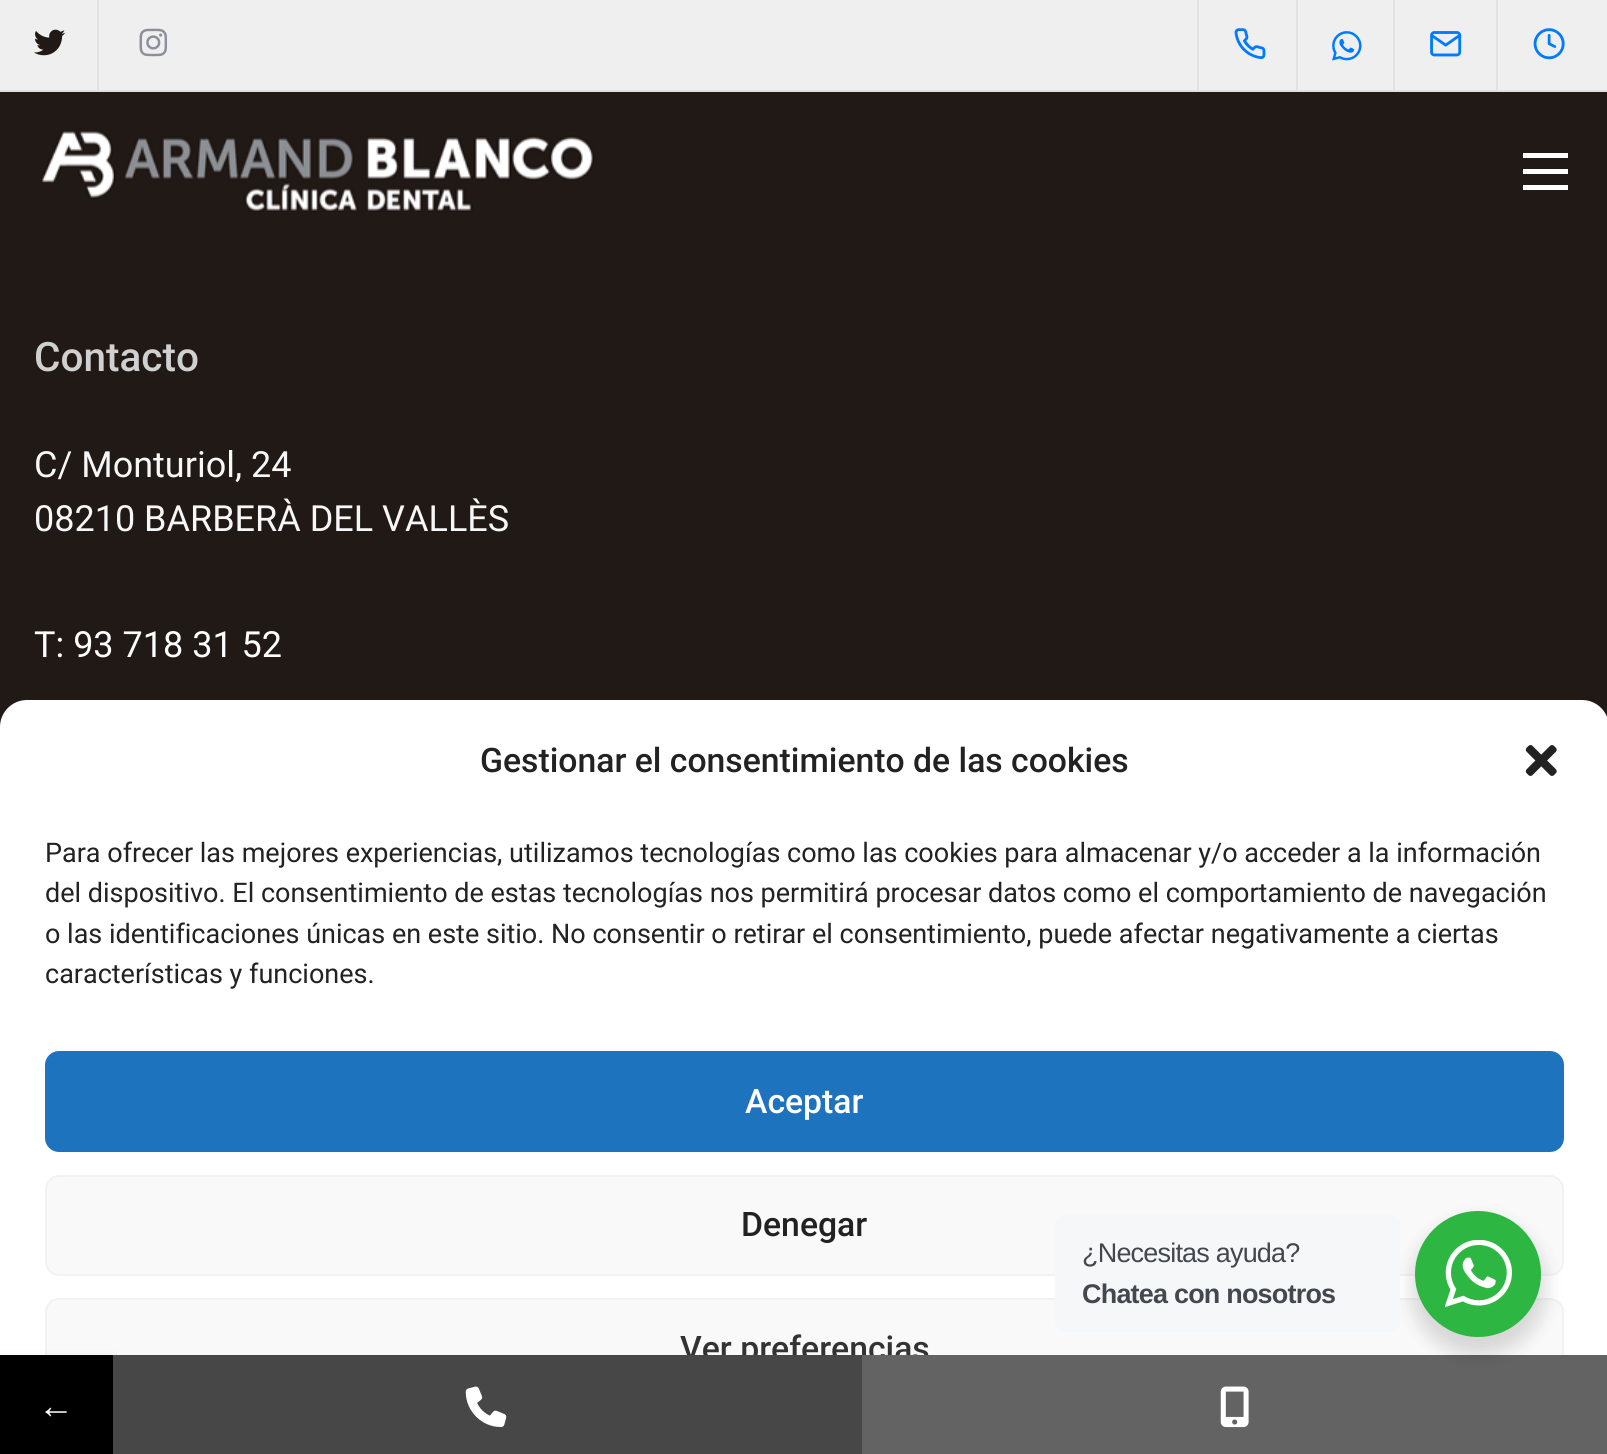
#include <cairo/cairo.h>
#include <math.h>
#include <stddef.h>

typedef struct { double x, y; const char *s; } line_t;
typedef struct { double x, y, w, h; unsigned color; } box_t;
static cairo_t *cr;

static void rgb(unsigned color)
{
	cairo_set_source_rgb(cr, (color >> 16) / 255.0, (color >> 8 & 255) / 255.0, (color & 255) / 255.0);
}

static void tracked(double x, double y, const char *s, double letter, double word)
{
	cairo_move_to(cr, x, y);
	while (*s) {
		char ch[5] = {0};
		int n = 0;
		do ch[n++] = *s++; while ((*s & 0xC0) == 0x80);
		cairo_show_text(cr, ch);
		cairo_rel_move_to(cr, letter + word * (*ch == ' '), 0);
	}
}

static void rrect(double x, double y, double w, double h, double r)
{
	cairo_new_sub_path(cr);
	cairo_arc(cr, x + w - r, y + h - r, r, 0, M_PI / 2);
	cairo_arc(cr, x + r, y + h - r, r, M_PI / 2, M_PI);
	cairo_arc(cr, x + r, y + r, r, M_PI, 1.5 * M_PI);
	cairo_arc(cr, x + w - r, y + r, r, 1.5 * M_PI, 2 * M_PI);
	cairo_close_path(cr);
}

static void soft_shadow(double x, double y, double w, double h, double r, double blur, double alpha)
{
	cairo_push_group_with_content(cr, CAIRO_CONTENT_ALPHA);
	cairo_set_operator(cr, CAIRO_OPERATOR_SOURCE);
	for (int i = 15; i >= -15 && fmin(w, h) + blur * i / 3 > 0; i -= 2) {
		double e = blur * i / 6;
		cairo_set_source_rgba(cr, 0, 0, 0, alpha * erfc((i - 1) / 8.5) / 2);
		rrect(x - e, y - e, w + 2 * e, h + 2 * e, fmax(0, fmin(r + e + blur * .6, fmin(w, h) / 2 + e)));
		cairo_fill(cr);
	}
	cairo_pattern_t *soft = cairo_pop_group(cr);
	cairo_mask(cr, soft);
	cairo_pattern_destroy(soft);
}

static void image(const char *path, double x, double y, double w, double h)
{
	cairo_surface_t *image = cairo_image_surface_create_from_png(path);
	cairo_save(cr);
	cairo_set_source_surface(cr, image, x, y);
	cairo_rectangle(cr, x, y, w, h);
	cairo_fill(cr);
	cairo_restore(cr);
	cairo_surface_destroy(image);
}

int main(void) {
	cairo_surface_t *surface = cairo_image_surface_create(CAIRO_FORMAT_RGB24, 1607, 1454);
	cr = cairo_create(surface);
	cairo_font_options_t *options = cairo_font_options_create();
	cairo_font_options_set_hint_metrics(options, CAIRO_HINT_METRICS_OFF);
	cairo_font_options_set_hint_style(options, CAIRO_HINT_STYLE_NONE);
	cairo_set_font_options(cr, options);
	cairo_set_miter_limit(cr, 4);
	rgb(0x211915);
	cairo_paint(cr);
	{
		static const box_t items[] = {
			{0, 0, 1607, 90, 0xefefef},
			{0, 90, 1607, 2, 0xe0e1e2},
			{97, 0, 2, 90, 0xe0e1e2},
		};
		for (size_t i = 0; i < sizeof items / sizeof *items; i++) {
			rgb(items[i].color);
			cairo_rectangle(cr, items[i].x, items[i].y, items[i].w, items[i].h);
			cairo_fill(cr);
		}
	}
	image("img/1.png", 34, 29, 32, 27);
	image("img/2.png", 139, 28, 29, 29);
	cairo_rectangle(cr, 1197, 0, 2, 90);
	cairo_fill(cr);
	cairo_rectangle(cr, 1296, 0, 2, 90);
	cairo_fill(cr);
	image("img/3.png", 1234, 28, 32, 32);
	cairo_rectangle(cr, 1393, 0, 2, 90);
	cairo_fill(cr);
	image("img/4.png", 1332, 31, 30, 30);
	cairo_rectangle(cr, 1496, 0, 2, 90);
	cairo_fill(cr);
	image("img/5.png", 1430, 31, 32, 26);
	image("img/6.png", 1533, 28, 32, 32);
	image("img/7.png", 41, 131, 553, 81);
	{
		static const box_t items[] = {
			{1523, 185, 45, 5, 0xffffff},
			{1523, 153, 45, 5, 0xffffff},
			{1523, 169, 45, 5, 0xffffff},
		};
		for (size_t i = 0; i < sizeof items / sizeof *items; i++) {
			rgb(items[i].color);
			cairo_rectangle(cr, items[i].x, items[i].y, items[i].w, items[i].h);
			cairo_fill(cr);
		}
	}
	rrect(0, 700, 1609, 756, 27);
	cairo_fill(cr);
	image("img/8.png", 1525, 745, 32, 31);
	rgb(0x1e73be);
	rrect(46, 1052, 1517, 99, 13);
	cairo_fill_preserve(cr);
	cairo_stroke(cr);
	rgb(0xf9f9f9);
	rrect(46, 1176, 1517, 99, 13);
	cairo_fill_preserve(cr);
	rgb(0xf2f2f2);
	cairo_stroke(cr);
	rgb(0xf9f9f9);
	rrect(46, 1299, 1517, 100, 13);
	cairo_fill_preserve(cr);
	rgb(0xf2f2f2);
	cairo_stroke(cr);
	rgb(0x000000);
	soft_shadow(0, 1361, 113, 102, 0, 7, 0.16);
	rgb(0x000000);
	cairo_rectangle(cr, 0, 1355, 113, 99);
	cairo_fill(cr);
	cairo_select_font_face(cr, "Roboto Medium", CAIRO_FONT_SLANT_NORMAL, CAIRO_FONT_WEIGHT_NORMAL);
	cairo_set_font_size(cr, 40.5);
	rgb(0xd0d0d0);
	cairo_move_to(cr, 34, 371);
	cairo_show_text(cr, "Contacto");
	cairo_select_font_face(cr, "Roboto", CAIRO_FONT_SLANT_NORMAL, CAIRO_FONT_WEIGHT_NORMAL);
	cairo_set_font_size(cr, 36);
	rgb(0xf7f7f7);
	cairo_move_to(cr, 34, 477);
	cairo_show_text(cr, "C/ Monturiol, 24");
	cairo_move_to(cr, 34, 531);
	cairo_show_text(cr, "08210 BARBERÀ DEL VALLÈS");
	rgb(0xffffff);
	cairo_move_to(cr, 34, 657);
	cairo_show_text(cr, "T: 93 718 31 52");
	cairo_select_font_face(cr, "Roboto Medium", CAIRO_FONT_SLANT_NORMAL, CAIRO_FONT_WEIGHT_NORMAL);
	cairo_set_font_size(cr, 33.75);
	rgb(0x222222);
	cairo_move_to(cr, 480, 772);
	cairo_show_text(cr, "Gestionar el consentimiento de las cookies");
	cairo_select_font_face(cr, "Roboto", CAIRO_FONT_SLANT_NORMAL, CAIRO_FONT_WEIGHT_NORMAL);
	cairo_set_font_size(cr, 27);
	{
		static const line_t items[] = {
			{45, 862, "Para ofrecer las mejores experiencias, utilizamos tecnologías como las cookies para almacenar y/o acceder a la información"},
			{45, 902, "del dispositivo. El consentimiento de estas tecnologías nos permitirá procesar datos como el comportamiento de navegación"},
			{45, 943, "o las identificaciones únicas en este sitio. No consentir o retirar el consentimiento, puede afectar negativamente a ciertas"},
			{45, 983, "características y funciones."},
		};
		for (size_t i = 0; i < sizeof items / sizeof *items; i++) {
			cairo_move_to(cr, items[i].x, items[i].y);
			cairo_show_text(cr, items[i].s);
		}
	}
	cairo_select_font_face(cr, "Roboto Medium", CAIRO_FONT_SLANT_NORMAL, CAIRO_FONT_WEIGHT_NORMAL);
	cairo_set_font_size(cr, 33.75);
	rgb(0xffffff);
	cairo_move_to(cr, 745, 1113);
	cairo_show_text(cr, "Aceptar");
	rgb(0x222222);
	cairo_move_to(cr, 741, 1236);
	cairo_show_text(cr, "Denegar");
	rgb(0x333333);
	cairo_move_to(cr, 680, 1360);
	cairo_show_text(cr, "Ver preferencias");
	cairo_select_font_face(cr, "Liberation Serif", CAIRO_FONT_SLANT_NORMAL, CAIRO_FONT_WEIGHT_NORMAL);
	cairo_set_font_size(cr, 36);
	rgb(0xffffff);
	cairo_move_to(cr, 38, 1418);
	cairo_show_text(cr, "←");
	rgb(0x474747);
	cairo_rectangle(cr, 113, 1355, 749, 99);
	cairo_fill(cr);
	image("img/10.png", 465, 1386, 42, 42);
	rgb(0x636363);
	cairo_rectangle(cr, 862, 1355, 745, 99);
	cairo_fill(cr);
	rgb(0x000000);
	soft_shadow(1411, 1220, 135, 135, 67.5, 9, 0.14);
	rgb(0x2db742);
	cairo_arc(cr, 1478, 1274, 63, 0, 2 * M_PI);
	cairo_fill(cr);
	image("img/9.png", 1445, 1240, 67, 67);
	rgb(0xf5f7f9);
	rrect(1055, 1215, 345, 117, 9);
	cairo_fill(cr);
	cairo_select_font_face(cr, "Liberation Sans", CAIRO_FONT_SLANT_NORMAL, CAIRO_FONT_WEIGHT_BOLD);
	cairo_set_font_size(cr, 27);
	rgb(0x43474e);
	tracked(1082, 1303, "Chatea con nosotros", -0.8, 0);
	cairo_select_font_face(cr, "Liberation Sans", CAIRO_FONT_SLANT_NORMAL, CAIRO_FONT_WEIGHT_NORMAL);
	tracked(1082, 1262, "¿Necesitas ayuda?", -0.8, 0);
	image("img/11.png", 1220, 1386, 29, 42);
	cairo_surface_write_to_png(surface, "page.png");
	cairo_font_options_destroy(options);
	cairo_destroy(cr);
	cairo_surface_destroy(surface);
	return 0;
}
